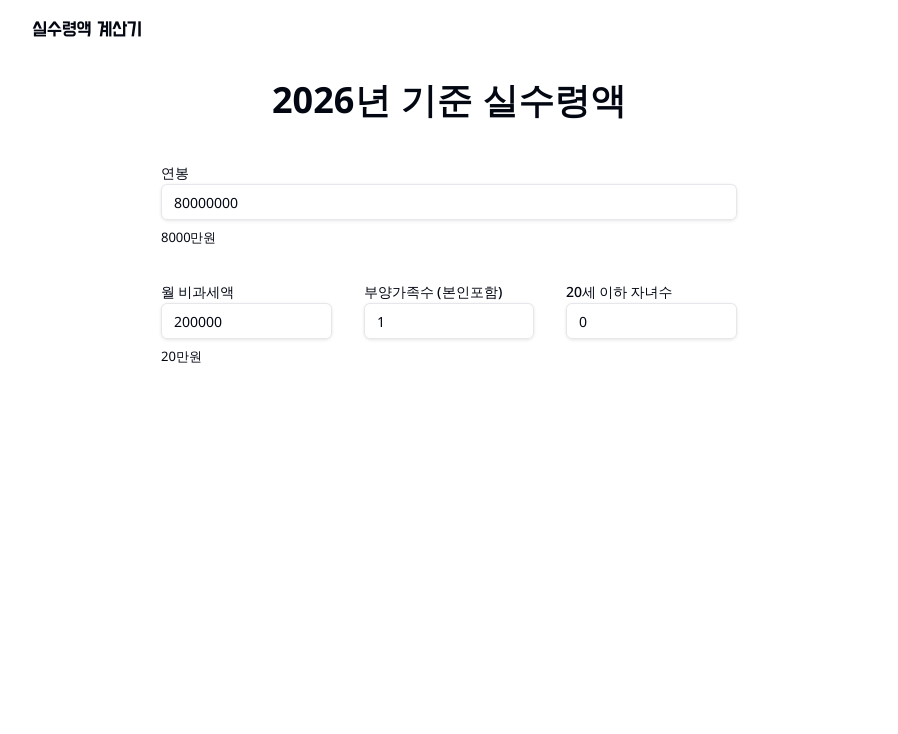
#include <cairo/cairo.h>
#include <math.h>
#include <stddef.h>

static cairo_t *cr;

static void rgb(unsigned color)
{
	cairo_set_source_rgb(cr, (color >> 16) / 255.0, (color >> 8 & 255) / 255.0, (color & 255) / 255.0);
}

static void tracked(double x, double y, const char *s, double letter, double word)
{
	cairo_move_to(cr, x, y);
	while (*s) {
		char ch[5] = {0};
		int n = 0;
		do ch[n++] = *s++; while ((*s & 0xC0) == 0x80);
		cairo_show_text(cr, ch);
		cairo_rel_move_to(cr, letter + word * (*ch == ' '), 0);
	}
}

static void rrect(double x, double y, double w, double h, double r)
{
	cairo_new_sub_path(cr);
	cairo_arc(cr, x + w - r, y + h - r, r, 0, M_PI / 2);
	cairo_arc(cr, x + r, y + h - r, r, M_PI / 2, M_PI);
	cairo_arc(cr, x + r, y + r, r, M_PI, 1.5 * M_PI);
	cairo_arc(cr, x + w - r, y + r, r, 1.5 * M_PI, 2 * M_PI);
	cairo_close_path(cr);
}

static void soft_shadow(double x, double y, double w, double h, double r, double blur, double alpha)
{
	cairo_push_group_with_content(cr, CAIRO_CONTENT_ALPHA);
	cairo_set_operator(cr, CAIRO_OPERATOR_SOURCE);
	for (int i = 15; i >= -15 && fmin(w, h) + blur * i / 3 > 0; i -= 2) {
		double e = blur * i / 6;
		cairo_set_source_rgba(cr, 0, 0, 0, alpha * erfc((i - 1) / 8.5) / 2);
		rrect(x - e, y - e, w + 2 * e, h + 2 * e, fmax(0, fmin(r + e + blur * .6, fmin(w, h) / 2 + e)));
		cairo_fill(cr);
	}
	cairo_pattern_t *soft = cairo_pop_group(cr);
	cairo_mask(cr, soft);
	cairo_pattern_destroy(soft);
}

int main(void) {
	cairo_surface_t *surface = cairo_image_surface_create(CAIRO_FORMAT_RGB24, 898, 734);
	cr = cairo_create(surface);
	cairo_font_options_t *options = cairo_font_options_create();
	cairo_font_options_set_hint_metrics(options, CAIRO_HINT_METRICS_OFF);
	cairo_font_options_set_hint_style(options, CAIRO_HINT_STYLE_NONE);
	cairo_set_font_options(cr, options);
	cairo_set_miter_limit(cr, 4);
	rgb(0xffffff);
	cairo_paint(cr);
	cairo_save(cr);
	cairo_set_fill_rule(cr, CAIRO_FILL_RULE_EVEN_ODD);
	cairo_new_path(cr);
	cairo_move_to(cr, 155, 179);
	cairo_line_to(cr, 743, 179);
	cairo_line_to(cr, 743, 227);
	cairo_line_to(cr, 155, 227);
	cairo_close_path(cr);
	cairo_move_to(cr, 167, 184);
	cairo_line_to(cr, 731, 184);
	cairo_curve_to(cr, 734.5, 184, 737, 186.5, 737, 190);
	cairo_line_to(cr, 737, 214);
	cairo_curve_to(cr, 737, 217.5, 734.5, 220, 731, 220);
	cairo_line_to(cr, 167, 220);
	cairo_curve_to(cr, 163.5, 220, 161, 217.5, 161, 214);
	cairo_line_to(cr, 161, 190);
	cairo_curve_to(cr, 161, 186.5, 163.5, 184, 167, 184);
	cairo_close_path(cr);
	cairo_clip(cr);
	rgb(0x000000);
	soft_shadow(161, 185, 576, 36, 6, 1.5, 0.1);
	cairo_restore(cr);
	rrect(161.5, 184.5, 575, 35, 5.5);
	rgb(0xe5e7eb);
	cairo_set_line_width(cr, 1);
	cairo_stroke(cr);
	cairo_save(cr);
	cairo_set_fill_rule(cr, CAIRO_FILL_RULE_EVEN_ODD);
	cairo_new_path(cr);
	cairo_move_to(cr, 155, 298);
	cairo_line_to(cr, 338, 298);
	cairo_line_to(cr, 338, 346);
	cairo_line_to(cr, 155, 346);
	cairo_close_path(cr);
	cairo_move_to(cr, 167, 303);
	cairo_line_to(cr, 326, 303);
	cairo_curve_to(cr, 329.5, 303, 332, 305.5, 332, 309);
	cairo_line_to(cr, 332, 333);
	cairo_curve_to(cr, 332, 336.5, 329.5, 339, 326, 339);
	cairo_line_to(cr, 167, 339);
	cairo_curve_to(cr, 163.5, 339, 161, 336.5, 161, 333);
	cairo_line_to(cr, 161, 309);
	cairo_curve_to(cr, 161, 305.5, 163.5, 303, 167, 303);
	cairo_close_path(cr);
	cairo_clip(cr);
	rgb(0x000000);
	soft_shadow(161, 304, 171, 36, 6, 1.5, 0.1);
	cairo_restore(cr);
	rrect(161.5, 303.5, 170, 35, 5.5);
	cairo_stroke(cr);
	cairo_save(cr);
	cairo_set_fill_rule(cr, CAIRO_FILL_RULE_EVEN_ODD);
	cairo_new_path(cr);
	cairo_move_to(cr, 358, 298);
	cairo_line_to(cr, 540, 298);
	cairo_line_to(cr, 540, 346);
	cairo_line_to(cr, 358, 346);
	cairo_close_path(cr);
	cairo_move_to(cr, 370, 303);
	cairo_line_to(cr, 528, 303);
	cairo_curve_to(cr, 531.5, 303, 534, 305.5, 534, 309);
	cairo_line_to(cr, 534, 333);
	cairo_curve_to(cr, 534, 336.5, 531.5, 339, 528, 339);
	cairo_line_to(cr, 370, 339);
	cairo_curve_to(cr, 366.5, 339, 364, 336.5, 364, 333);
	cairo_line_to(cr, 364, 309);
	cairo_curve_to(cr, 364, 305.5, 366.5, 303, 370, 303);
	cairo_close_path(cr);
	cairo_clip(cr);
	rgb(0x000000);
	soft_shadow(364, 304, 170, 36, 6, 1.5, 0.1);
	cairo_restore(cr);
	rrect(364.5, 303.5, 169, 35, 5.5);
	cairo_stroke(cr);
	cairo_save(cr);
	cairo_set_fill_rule(cr, CAIRO_FILL_RULE_EVEN_ODD);
	cairo_new_path(cr);
	cairo_move_to(cr, 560, 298);
	cairo_line_to(cr, 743, 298);
	cairo_line_to(cr, 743, 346);
	cairo_line_to(cr, 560, 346);
	cairo_close_path(cr);
	cairo_move_to(cr, 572, 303);
	cairo_line_to(cr, 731, 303);
	cairo_curve_to(cr, 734.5, 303, 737, 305.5, 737, 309);
	cairo_line_to(cr, 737, 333);
	cairo_curve_to(cr, 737, 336.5, 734.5, 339, 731, 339);
	cairo_line_to(cr, 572, 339);
	cairo_curve_to(cr, 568.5, 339, 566, 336.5, 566, 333);
	cairo_line_to(cr, 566, 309);
	cairo_curve_to(cr, 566, 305.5, 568.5, 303, 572, 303);
	cairo_close_path(cr);
	cairo_clip(cr);
	rgb(0x000000);
	soft_shadow(566, 304, 171, 36, 6, 1.5, 0.1);
	cairo_restore(cr);
	rrect(566.5, 303.5, 170, 35, 5.5);
	cairo_stroke(cr);
	cairo_select_font_face(cr, "Do Hyeon", CAIRO_FONT_SLANT_NORMAL, CAIRO_FONT_WEIGHT_NORMAL);
	cairo_set_font_size(cr, 20);
	rgb(0x030712);
	tracked(32, 36, "실수령액 계산기", -0.5, 0);
	cairo_select_font_face(cr, "Noto Sans", CAIRO_FONT_SLANT_NORMAL, CAIRO_FONT_WEIGHT_BOLD);
	cairo_set_font_size(cr, 36);
	cairo_move_to(cr, 272, 113);
	cairo_show_text(cr, "2026");
	cairo_select_font_face(cr, "WenQuanYi Zen Hei", CAIRO_FONT_SLANT_NORMAL, CAIRO_FONT_WEIGHT_BOLD);
	tracked(355, 113, "년 기준 실수령액", 0, -1);
	cairo_select_font_face(cr, "WenQuanYi Zen Hei Medium", CAIRO_FONT_SLANT_NORMAL, CAIRO_FONT_WEIGHT_NORMAL);
	cairo_set_font_size(cr, 14);
	cairo_move_to(cr, 161, 178);
	cairo_show_text(cr, "연봉");
	cairo_select_font_face(cr, "Noto Sans", CAIRO_FONT_SLANT_NORMAL, CAIRO_FONT_WEIGHT_NORMAL);
	cairo_move_to(cr, 174, 208);
	cairo_show_text(cr, "80000000");
	cairo_set_font_size(cr, 13);
	cairo_move_to(cr, 161, 242);
	cairo_show_text(cr, "8000");
	cairo_select_font_face(cr, "WenQuanYi Zen Hei Medium", CAIRO_FONT_SLANT_NORMAL, CAIRO_FONT_WEIGHT_NORMAL);
	cairo_move_to(cr, 190, 242);
	cairo_show_text(cr, "만원");
	cairo_set_font_size(cr, 14);
	tracked(161, 297, "월 비과세액", 0, -1);
	cairo_select_font_face(cr, "Noto Sans", CAIRO_FONT_SLANT_NORMAL, CAIRO_FONT_WEIGHT_NORMAL);
	cairo_move_to(cr, 174, 327);
	cairo_show_text(cr, "200000");
	cairo_set_font_size(cr, 13);
	cairo_move_to(cr, 161, 361);
	cairo_show_text(cr, "20");
	cairo_select_font_face(cr, "WenQuanYi Zen Hei Medium", CAIRO_FONT_SLANT_NORMAL, CAIRO_FONT_WEIGHT_NORMAL);
	cairo_move_to(cr, 176, 361);
	cairo_show_text(cr, "만원");
	cairo_set_font_size(cr, 14);
	cairo_move_to(cr, 364, 297);
	cairo_show_text(cr, "부양가족수");
	cairo_select_font_face(cr, "Noto Sans Medium", CAIRO_FONT_SLANT_NORMAL, CAIRO_FONT_WEIGHT_NORMAL);
	cairo_move_to(cr, 437, 297);
	cairo_show_text(cr, "(");
	cairo_select_font_face(cr, "WenQuanYi Zen Hei Medium", CAIRO_FONT_SLANT_NORMAL, CAIRO_FONT_WEIGHT_NORMAL);
	cairo_move_to(cr, 442, 297);
	cairo_show_text(cr, "본인포함");
	cairo_select_font_face(cr, "Noto Sans Medium", CAIRO_FONT_SLANT_NORMAL, CAIRO_FONT_WEIGHT_NORMAL);
	cairo_move_to(cr, 498, 297);
	cairo_show_text(cr, ")");
	cairo_select_font_face(cr, "Noto Sans", CAIRO_FONT_SLANT_NORMAL, CAIRO_FONT_WEIGHT_NORMAL);
	cairo_move_to(cr, 377, 327);
	cairo_show_text(cr, "1");
	cairo_select_font_face(cr, "Noto Sans Medium", CAIRO_FONT_SLANT_NORMAL, CAIRO_FONT_WEIGHT_NORMAL);
	cairo_move_to(cr, 566, 297);
	cairo_show_text(cr, "20");
	cairo_select_font_face(cr, "WenQuanYi Zen Hei Medium", CAIRO_FONT_SLANT_NORMAL, CAIRO_FONT_WEIGHT_NORMAL);
	tracked(582, 297, "세 이하 자녀수", 0, -1);
	cairo_select_font_face(cr, "Noto Sans", CAIRO_FONT_SLANT_NORMAL, CAIRO_FONT_WEIGHT_NORMAL);
	cairo_move_to(cr, 579, 327);
	cairo_show_text(cr, "0");
	cairo_surface_write_to_png(surface, "page.png");
	cairo_font_options_destroy(options);
	cairo_destroy(cr);
	cairo_surface_destroy(surface);
	return 0;
}
